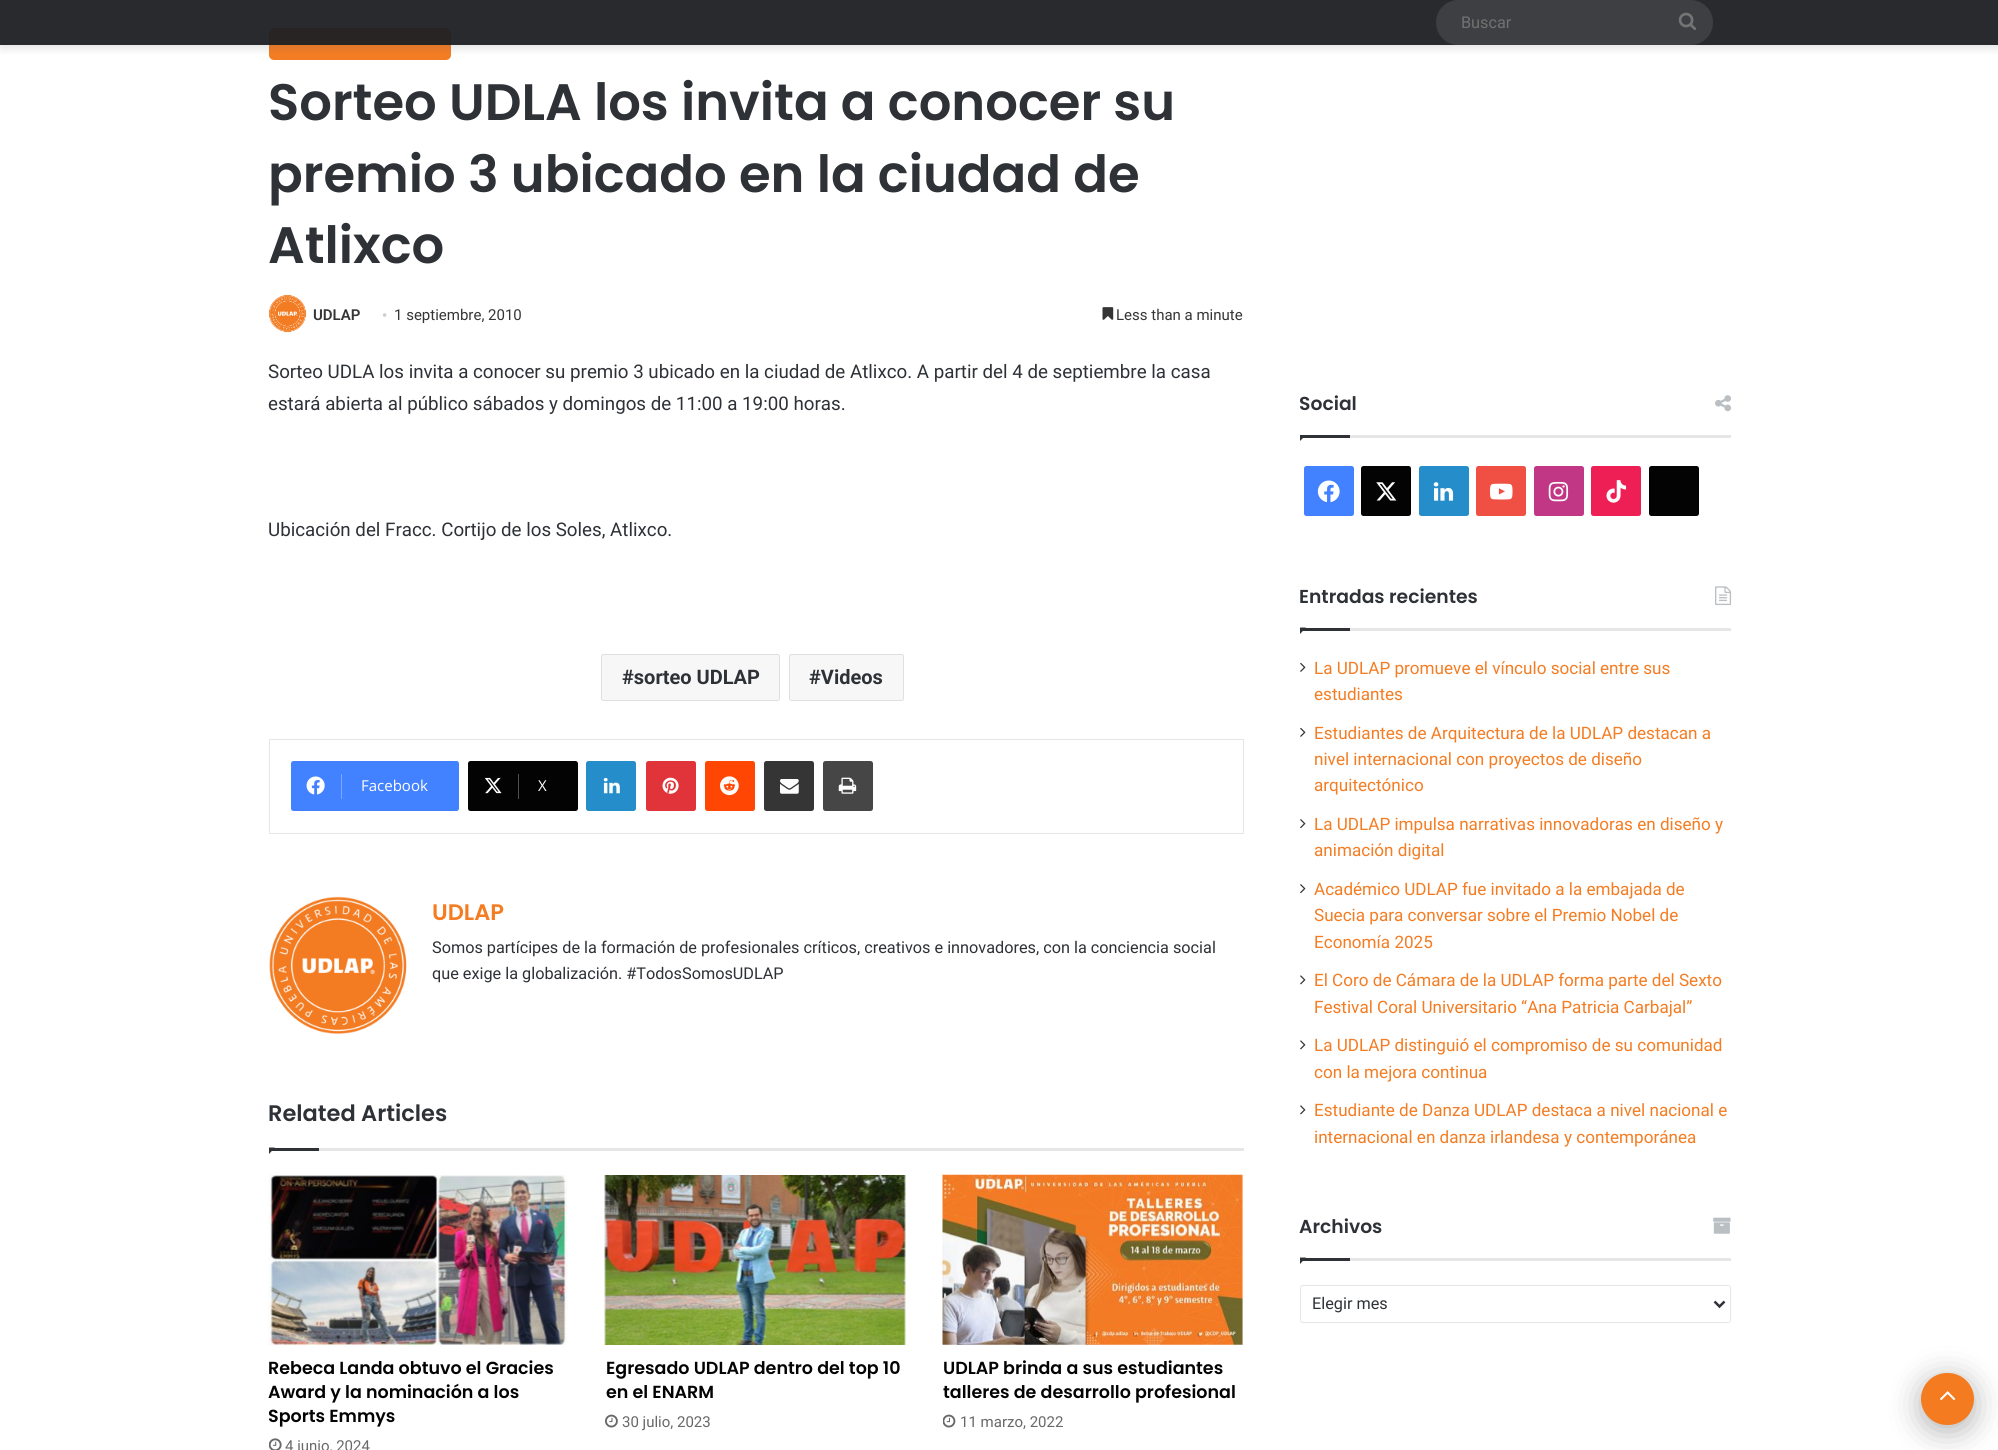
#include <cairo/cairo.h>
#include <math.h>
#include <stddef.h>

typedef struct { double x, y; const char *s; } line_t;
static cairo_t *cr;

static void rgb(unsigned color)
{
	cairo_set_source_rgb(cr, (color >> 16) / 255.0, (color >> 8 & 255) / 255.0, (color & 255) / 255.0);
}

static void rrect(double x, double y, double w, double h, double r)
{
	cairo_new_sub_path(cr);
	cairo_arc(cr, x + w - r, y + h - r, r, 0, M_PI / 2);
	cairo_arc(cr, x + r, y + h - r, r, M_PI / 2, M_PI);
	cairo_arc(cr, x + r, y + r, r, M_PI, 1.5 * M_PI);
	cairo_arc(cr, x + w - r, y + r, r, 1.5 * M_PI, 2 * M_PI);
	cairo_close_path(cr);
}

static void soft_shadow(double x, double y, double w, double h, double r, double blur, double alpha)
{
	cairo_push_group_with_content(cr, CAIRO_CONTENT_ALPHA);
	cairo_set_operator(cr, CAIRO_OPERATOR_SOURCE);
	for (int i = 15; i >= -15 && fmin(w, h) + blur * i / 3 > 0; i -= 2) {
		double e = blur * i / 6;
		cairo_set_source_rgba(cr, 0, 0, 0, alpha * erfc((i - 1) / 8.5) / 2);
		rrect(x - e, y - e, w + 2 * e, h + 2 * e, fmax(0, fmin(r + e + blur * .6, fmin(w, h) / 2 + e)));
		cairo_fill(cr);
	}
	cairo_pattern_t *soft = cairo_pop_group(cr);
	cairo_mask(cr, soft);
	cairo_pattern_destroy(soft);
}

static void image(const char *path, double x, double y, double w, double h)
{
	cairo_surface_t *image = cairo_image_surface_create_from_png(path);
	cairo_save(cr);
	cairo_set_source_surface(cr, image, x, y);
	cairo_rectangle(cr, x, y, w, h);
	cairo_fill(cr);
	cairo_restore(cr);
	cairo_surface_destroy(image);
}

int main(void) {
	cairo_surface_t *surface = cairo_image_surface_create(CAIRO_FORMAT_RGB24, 1998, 1450);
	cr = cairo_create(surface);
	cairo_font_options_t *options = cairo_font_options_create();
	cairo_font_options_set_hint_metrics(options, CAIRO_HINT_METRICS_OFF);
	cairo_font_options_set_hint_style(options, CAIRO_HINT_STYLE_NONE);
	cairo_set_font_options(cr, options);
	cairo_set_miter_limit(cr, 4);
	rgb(0xffffff);
	cairo_paint(cr);
	rgb(0xf47c22);
	rrect(269, 28, 182, 32, 5);
	cairo_fill(cr);
	cairo_save(cr);
	cairo_rectangle(cr, 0, 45, 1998, 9);
	cairo_clip(cr);
	rgb(0x636363);
	soft_shadow(0, 3, 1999, 45, 0, 5, 0.2);
	cairo_restore(cr);
	cairo_set_source_rgba(cr, 0.122, 0.125, 0.141, 0.95);
	cairo_rectangle(cr, 0, 0, 1998, 45);
	cairo_fill(cr);
	rgb(0x3e3f43);
	rrect(1436, 0, 277, 45, 22.5);
	cairo_fill(cr);
	image("img/1.png", 1678, 12, 19, 18);
	image("img/2.png", 268, 294, 38, 39);
	image("img/3.png", 1102, 307, 12, 13);
	rgb(0xf7f7f7);
	rrect(601.5, 654.5, 178, 46, 2);
	cairo_fill_preserve(cr);
	rgb(0xdfdfdf);
	cairo_set_line_width(cr, 1);
	cairo_stroke(cr);
	rgb(0xf7f7f7);
	rrect(789.5, 654.5, 114, 46, 2);
	cairo_fill_preserve(cr);
	rgb(0xdfdfdf);
	cairo_stroke(cr);
	cairo_rectangle(cr, 269.5, 739.5, 974, 94);
	rgb(0xe6e6e6);
	cairo_stroke(cr);
	rgb(0x4281ff);
	rrect(291, 761, 168, 50, 2.5);
	cairo_fill(cr);
	image("img/4.png", 306, 776, 19, 19);
	rgb(0x7ba7ff);
	cairo_rectangle(cr, 341, 774, 1, 25);
	cairo_fill(cr);
	rgb(0x030303);
	rrect(468, 761, 110, 50, 2.5);
	cairo_fill(cr);
	image("img/5.png", 484, 777, 18, 17);
	rgb(0x4f4f4f);
	cairo_rectangle(cr, 518, 774, 1, 25);
	cairo_fill(cr);
	rgb(0x258dc9);
	rrect(586, 761, 50, 50, 2.5);
	cairo_fill(cr);
	image("img/6.png", 603, 777, 17, 17);
	rgb(0xe1333a);
	rrect(646, 761, 50, 50, 2.5);
	cairo_fill(cr);
	image("img/7.png", 662, 777, 17, 17);
	rgb(0xff4703);
	rrect(705, 761, 50, 50, 2.5);
	cairo_fill(cr);
	image("img/8.png", 720, 776, 19, 20);
	rgb(0x353535);
	rrect(764, 761, 50, 50, 2.5);
	cairo_fill(cr);
	image("img/9.png", 780, 779, 19, 15);
	rgb(0x464646);
	rrect(823, 761, 50, 50, 2.5);
	cairo_fill(cr);
	image("img/10.png", 838, 777, 19, 17);
	image("img/11.png", 269, 896, 138, 138);
	rgb(0xe6e6e6);
	cairo_rectangle(cr, 319, 1148, 925, 3);
	cairo_fill(cr);
	rgb(0x2e3136);
	cairo_new_path(cr);
	cairo_move_to(cr, 269, 1147.5);
	cairo_line_to(cr, 275, 1147.5);
	cairo_line_to(cr, 269, 1154);
	cairo_close_path(cr);
	cairo_fill(cr);
	cairo_rectangle(cr, 269, 1148, 50, 3);
	cairo_fill(cr);
	image("img/12.png", 268, 1175, 300, 170);
	image("img/13.png", 269, 1438, 13, 12);
	image("img/14.png", 604, 1175, 302, 170);
	image("img/15.png", 605, 1414, 13, 14);
	image("img/16.png", 942, 1174, 301, 171);
	image("img/17.png", 943, 1414, 13, 14);
	rgb(0xe6e6e6);
	cairo_rectangle(cr, 1350, 435, 381, 3);
	cairo_fill(cr);
	image("img/18.png", 1715, 395, 16, 17);
	rgb(0x2e3136);
	cairo_new_path(cr);
	cairo_move_to(cr, 1300, 435);
	cairo_line_to(cr, 1306, 435);
	cairo_line_to(cr, 1300, 441);
	cairo_close_path(cr);
	cairo_fill(cr);
	cairo_rectangle(cr, 1300, 435, 50, 3);
	cairo_fill(cr);
	rgb(0x4281ff);
	rrect(1304, 466, 50, 50, 2.5);
	cairo_fill(cr);
	image("img/19.png", 1317, 480, 23, 23);
	rgb(0x030303);
	rrect(1361, 466, 50, 50, 2.5);
	cairo_fill(cr);
	image("img/20.png", 1376, 482, 21, 19);
	rgb(0x258dc9);
	rrect(1419, 466, 50, 50, 2.5);
	cairo_fill(cr);
	image("img/21.png", 1433, 482, 21, 19);
	rgb(0xef5043);
	rrect(1476, 466, 50, 50, 2.5);
	cairo_fill(cr);
	image("img/22.png", 1490, 483, 23, 17);
	rgb(0xc23785);
	rrect(1534, 466, 50, 50, 2.5);
	cairo_fill(cr);
	image("img/23.png", 1548, 481, 21, 21);
	rgb(0xee1f54);
	rrect(1591, 466, 50, 50, 2.5);
	cairo_fill(cr);
	image("img/24.png", 1606, 480, 21, 23);
	rgb(0x030303);
	rrect(1649, 466, 50, 50, 2.5);
	cairo_fill(cr);
	rgb(0xe6e6e6);
	cairo_rectangle(cr, 1350, 628, 381, 3);
	cairo_fill(cr);
	image("img/25.png", 1715, 586, 17, 20);
	rgb(0x2e3136);
	cairo_new_path(cr);
	cairo_move_to(cr, 1300, 627.5);
	cairo_line_to(cr, 1306, 627.5);
	cairo_line_to(cr, 1300, 634);
	cairo_close_path(cr);
	cairo_fill(cr);
	cairo_rectangle(cr, 1300, 628, 50, 3);
	cairo_fill(cr);
	image("img/26.png", 1300, 662, 6, 10);
	image("img/26.png", 1300, 727, 6, 10);
	image("img/27.png", 1300, 819, 6, 10);
	image("img/27.png", 1300, 884, 6, 10);
	image("img/28.png", 1300, 975, 6, 10);
	image("img/28.png", 1300, 1040, 6, 10);
	image("img/28.png", 1300, 1105, 6, 10);
	rgb(0xe6e6e6);
	cairo_rectangle(cr, 1350, 1258, 381, 3);
	cairo_fill(cr);
	image("img/29.png", 1713, 1217, 18, 17);
	rgb(0x2e3136);
	cairo_new_path(cr);
	cairo_move_to(cr, 1300, 1257.5);
	cairo_line_to(cr, 1306, 1257.5);
	cairo_line_to(cr, 1300, 1264);
	cairo_close_path(cr);
	cairo_fill(cr);
	cairo_rectangle(cr, 1300, 1258, 50, 3);
	cairo_fill(cr);
	rrect(1300.5, 1285.5, 430, 37, 2);
	rgb(0xe6e6e6);
	cairo_stroke(cr);
	cairo_new_path(cr);
	cairo_move_to(cr, 1714.5, 1301.5);
	cairo_line_to(cr, 1719.5, 1306.5);
	cairo_line_to(cr, 1724.5, 1301.5);
	rgb(0x2e3136);
	cairo_set_line_width(cr, 2.5);
	cairo_stroke(cr);
	rgb(0x000000);
	soft_shadow(1921, 1379, 53, 52, 26, 15.5, 0.3);
	rgb(0xf47b20);
	rrect(1921, 1373, 53, 52, 26);
	cairo_fill(cr);
	image("img/30.png", 1940, 1391, 16, 10);
	cairo_select_font_face(cr, "Roboto", CAIRO_FONT_SLANT_NORMAL, CAIRO_FONT_WEIGHT_NORMAL);
	cairo_set_font_size(cr, 16.25);
	rgb(0x717171);
	cairo_move_to(cr, 1461, 28);
	cairo_show_text(cr, "Buscar");
	cairo_select_font_face(cr, "Poppins SemiBold", CAIRO_FONT_SLANT_NORMAL, CAIRO_FONT_WEIGHT_NORMAL);
	cairo_set_font_size(cr, 51.25);
	rgb(0x2e3136);
	{
		static const line_t items[] = {
			{268, 120, "Sorteo UDLA los invita a conocer su"},
			{268, 192, "premio 3 ubicado en la ciudad de"},
			{268, 263, "Atlixco"},
		};
		for (size_t i = 0; i < sizeof items / sizeof *items; i++) {
			cairo_move_to(cr, items[i].x, items[i].y);
			cairo_show_text(cr, items[i].s);
		}
	}
	cairo_select_font_face(cr, "Roboto SemiBold", CAIRO_FONT_SLANT_NORMAL, CAIRO_FONT_WEIGHT_NORMAL);
	cairo_set_font_size(cr, 15);
	rgb(0x353535);
	cairo_move_to(cr, 313, 320);
	cairo_show_text(cr, "UDLAP");
	cairo_select_font_face(cr, "Liberation Serif", CAIRO_FONT_SLANT_NORMAL, CAIRO_FONT_WEIGHT_NORMAL);
	rgb(0xcdcdcd);
	cairo_move_to(cr, 382, 320);
	cairo_show_text(cr, "•");
	cairo_select_font_face(cr, "Roboto", CAIRO_FONT_SLANT_NORMAL, CAIRO_FONT_WEIGHT_NORMAL);
	rgb(0x353535);
	cairo_move_to(cr, 394, 320);
	cairo_show_text(cr, "1 septiembre, 2010");
	cairo_move_to(cr, 1116, 320);
	cairo_show_text(cr, "Less than a minute");
	cairo_set_font_size(cr, 18.75);
	rgb(0x2e3136);
	{
		static const line_t items[] = {
			{268, 378, "Sorteo UDLA los invita a conocer su premio 3 ubicado en la ciudad de Atlixco. A partir del 4 de septiembre la casa"},
			{268, 410, "estará abierta al público sábados y domingos de 11:00 a 19:00 horas."},
			{268, 536, "Ubicación del Fracc. Cortijo de los Soles, Atlixco."},
		};
		for (size_t i = 0; i < sizeof items / sizeof *items; i++) {
			cairo_move_to(cr, items[i].x, items[i].y);
			cairo_show_text(cr, items[i].s);
		}
	}
	cairo_select_font_face(cr, "Roboto", CAIRO_FONT_SLANT_NORMAL, CAIRO_FONT_WEIGHT_BOLD);
	cairo_set_font_size(cr, 20);
	cairo_move_to(cr, 622, 684);
	cairo_show_text(cr, "#sorteo UDLAP");
	cairo_move_to(cr, 809, 684);
	cairo_show_text(cr, "#Videos");
	cairo_select_font_face(cr, "Open Sans", CAIRO_FONT_SLANT_NORMAL, CAIRO_FONT_WEIGHT_NORMAL);
	cairo_set_font_size(cr, 15);
	rgb(0xffffff);
	cairo_move_to(cr, 361, 791);
	cairo_show_text(cr, "Facebook");
	cairo_move_to(cr, 538, 791);
	cairo_show_text(cr, "X");
	cairo_select_font_face(cr, "Poppins SemiBold", CAIRO_FONT_SLANT_NORMAL, CAIRO_FONT_WEIGHT_NORMAL);
	cairo_set_font_size(cr, 22.5);
	rgb(0xf47c22);
	cairo_move_to(cr, 432, 920);
	cairo_show_text(cr, "UDLAP");
	cairo_select_font_face(cr, "Roboto", CAIRO_FONT_SLANT_NORMAL, CAIRO_FONT_WEIGHT_NORMAL);
	cairo_set_font_size(cr, 16.25);
	rgb(0x2e3136);
	cairo_move_to(cr, 432, 953);
	cairo_show_text(cr, "Somos partícipes de la formación de profesionales críticos, creativos e innovadores, con la conciencia social");
	cairo_move_to(cr, 432, 979);
	cairo_show_text(cr, "que exige la globalización. #TodosSomosUDLAP");
	cairo_select_font_face(cr, "Poppins SemiBold", CAIRO_FONT_SLANT_NORMAL, CAIRO_FONT_WEIGHT_NORMAL);
	cairo_set_font_size(cr, 22.5);
	cairo_move_to(cr, 268, 1121);
	cairo_show_text(cr, "Related Articles");
	cairo_set_font_size(cr, 17.5);
	rgb(0x030303);
	{
		static const line_t items[] = {
			{268, 1374, "Rebeca Landa obtuvo el Gracies"},
			{268, 1398, "Award y la nominación a los"},
			{268, 1422, "Sports Emmys"},
		};
		for (size_t i = 0; i < sizeof items / sizeof *items; i++) {
			cairo_move_to(cr, items[i].x, items[i].y);
			cairo_show_text(cr, items[i].s);
		}
	}
	cairo_select_font_face(cr, "Roboto", CAIRO_FONT_SLANT_NORMAL, CAIRO_FONT_WEIGHT_NORMAL);
	cairo_set_font_size(cr, 15);
	rgb(0x686868);
	cairo_move_to(cr, 285, 1451);
	cairo_show_text(cr, "4 junio, 2024");
	cairo_select_font_face(cr, "Poppins SemiBold", CAIRO_FONT_SLANT_NORMAL, CAIRO_FONT_WEIGHT_NORMAL);
	cairo_set_font_size(cr, 17.5);
	rgb(0x030303);
	cairo_move_to(cr, 606, 1374);
	cairo_show_text(cr, "Egresado UDLAP dentro del top 10");
	cairo_move_to(cr, 606, 1398);
	cairo_show_text(cr, "en el ENARM");
	cairo_select_font_face(cr, "Roboto", CAIRO_FONT_SLANT_NORMAL, CAIRO_FONT_WEIGHT_NORMAL);
	cairo_set_font_size(cr, 15);
	rgb(0x686868);
	cairo_move_to(cr, 622, 1427);
	cairo_show_text(cr, "30 julio, 2023");
	cairo_select_font_face(cr, "Poppins SemiBold", CAIRO_FONT_SLANT_NORMAL, CAIRO_FONT_WEIGHT_NORMAL);
	cairo_set_font_size(cr, 17.5);
	rgb(0x030303);
	cairo_move_to(cr, 943, 1374);
	cairo_show_text(cr, "UDLAP brinda a sus estudiantes");
	cairo_move_to(cr, 943, 1398);
	cairo_show_text(cr, "talleres de desarrollo profesional");
	cairo_select_font_face(cr, "Roboto", CAIRO_FONT_SLANT_NORMAL, CAIRO_FONT_WEIGHT_NORMAL);
	cairo_set_font_size(cr, 15);
	rgb(0x686868);
	cairo_move_to(cr, 960, 1427);
	cairo_show_text(cr, "11 marzo, 2022");
	cairo_select_font_face(cr, "Poppins SemiBold", CAIRO_FONT_SLANT_NORMAL, CAIRO_FONT_WEIGHT_NORMAL);
	cairo_set_font_size(cr, 18.75);
	rgb(0x2e3136);
	cairo_move_to(cr, 1299, 410);
	cairo_show_text(cr, "Social");
	cairo_move_to(cr, 1299, 603);
	cairo_show_text(cr, "Entradas recientes");
	cairo_select_font_face(cr, "Roboto", CAIRO_FONT_SLANT_NORMAL, CAIRO_FONT_WEIGHT_NORMAL);
	cairo_set_font_size(cr, 17.1);
	rgb(0xf47c22);
	{
		static const line_t items[] = {
			{1314, 674, "La UDLAP promueve el vínculo social entre sus"},
			{1314, 700, "estudiantes"},
			{1314, 739, "Estudiantes de Arquitectura de la UDLAP destacan a"},
			{1314, 765, "nivel internacional con proyectos de diseño"},
			{1314, 791, "arquitectónico"},
			{1314, 830, "La UDLAP impulsa narrativas innovadoras en diseño y"},
			{1314, 856, "animación digital"},
			{1314, 895, "Académico UDLAP fue invitado a la embajada de"},
			{1314, 921, "Suecia para conversar sobre el Premio Nobel de"},
			{1314, 948, "Economía 2025"},
			{1314, 986, "El Coro de Cámara de la UDLAP forma parte del Sexto"},
			{1314, 1013, "Festival Coral Universitario “Ana Patricia Carbajal”"},
			{1314, 1051, "La UDLAP distinguió el compromiso de su comunidad"},
			{1314, 1078, "con la mejora continua"},
			{1314, 1116, "Estudiante de Danza UDLAP destaca a nivel nacional e"},
			{1314, 1143, "internacional en danza irlandesa y contemporánea"},
		};
		for (size_t i = 0; i < sizeof items / sizeof *items; i++) {
			cairo_move_to(cr, items[i].x, items[i].y);
			cairo_show_text(cr, items[i].s);
		}
	}
	cairo_select_font_face(cr, "Poppins SemiBold", CAIRO_FONT_SLANT_NORMAL, CAIRO_FONT_WEIGHT_NORMAL);
	cairo_set_font_size(cr, 18.75);
	rgb(0x2e3136);
	cairo_move_to(cr, 1299, 1233);
	cairo_show_text(cr, "Archivos");
	cairo_select_font_face(cr, "Roboto", CAIRO_FONT_SLANT_NORMAL, CAIRO_FONT_WEIGHT_NORMAL);
	cairo_set_font_size(cr, 16.25);
	cairo_move_to(cr, 1312, 1309);
	cairo_show_text(cr, "Elegir mes");
	cairo_surface_write_to_png(surface, "page.png");
	cairo_font_options_destroy(options);
	cairo_destroy(cr);
	cairo_surface_destroy(surface);
	return 0;
}
